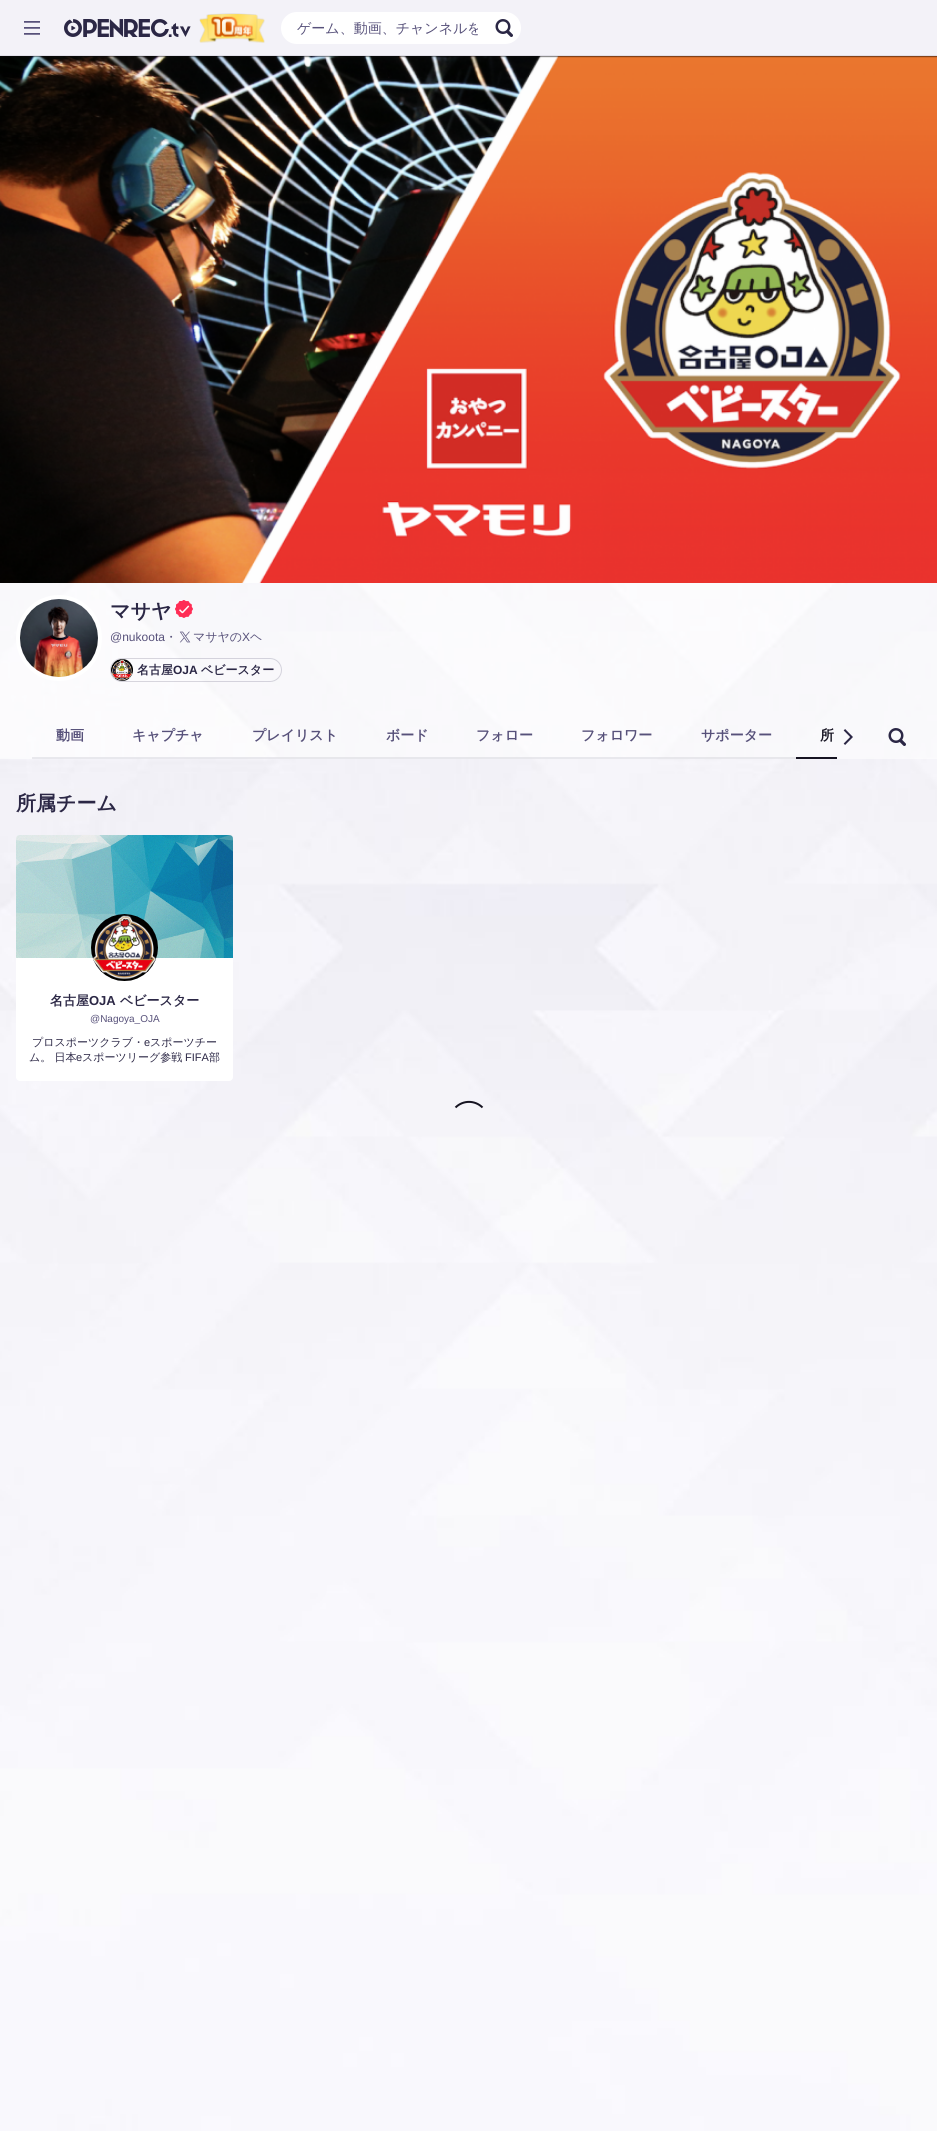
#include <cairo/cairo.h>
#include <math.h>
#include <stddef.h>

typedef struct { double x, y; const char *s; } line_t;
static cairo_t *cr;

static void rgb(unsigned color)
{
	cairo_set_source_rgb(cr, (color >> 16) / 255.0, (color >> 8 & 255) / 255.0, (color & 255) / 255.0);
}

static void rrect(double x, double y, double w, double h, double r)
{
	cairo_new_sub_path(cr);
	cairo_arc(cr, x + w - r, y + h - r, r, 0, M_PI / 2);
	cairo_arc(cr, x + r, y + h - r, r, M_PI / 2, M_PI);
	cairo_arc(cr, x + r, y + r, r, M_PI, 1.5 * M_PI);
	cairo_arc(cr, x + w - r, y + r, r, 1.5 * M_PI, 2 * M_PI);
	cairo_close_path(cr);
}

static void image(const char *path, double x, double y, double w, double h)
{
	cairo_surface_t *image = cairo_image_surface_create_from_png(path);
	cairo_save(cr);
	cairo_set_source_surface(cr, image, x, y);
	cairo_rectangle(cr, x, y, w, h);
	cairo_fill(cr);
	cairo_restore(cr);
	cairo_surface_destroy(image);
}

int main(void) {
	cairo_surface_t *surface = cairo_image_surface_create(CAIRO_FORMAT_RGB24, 937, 2131);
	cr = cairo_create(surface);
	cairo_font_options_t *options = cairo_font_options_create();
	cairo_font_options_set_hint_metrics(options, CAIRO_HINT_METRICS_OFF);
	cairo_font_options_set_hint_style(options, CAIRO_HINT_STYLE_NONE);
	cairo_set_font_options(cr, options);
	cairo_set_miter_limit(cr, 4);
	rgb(0xffffff);
	cairo_paint(cr);
	rgb(0xf3f2f8);
	cairo_rectangle(cr, 0, 0, 937, 55);
	cairo_fill(cr);
	rgb(0xe2e0e9);
	cairo_rectangle(cr, 0, 55, 937, 1);
	cairo_fill(cr);
	image("img/1.png", 24, 21, 16, 14);
	image("img/2.png", 64, 19, 127, 18);
	image("img/3.png", 199, 13, 66, 30);
	rgb(0xffffff);
	cairo_new_path(cr);
	cairo_move_to(cr, 297, 12);
	cairo_line_to(cr, 486, 12);
	cairo_line_to(cr, 486, 44);
	cairo_line_to(cr, 297, 44);
	cairo_curve_to(cr, 288, 44, 281, 37, 281, 28);
	cairo_curve_to(cr, 281, 19, 288, 12, 297, 12);
	cairo_close_path(cr);
	cairo_fill(cr);
	cairo_new_path(cr);
	cairo_move_to(cr, 486, 12);
	cairo_line_to(cr, 505, 12);
	cairo_curve_to(cr, 514, 12, 521, 19, 521, 28);
	cairo_curve_to(cr, 521, 37, 514, 44, 505, 44);
	cairo_line_to(cr, 486, 44);
	cairo_close_path(cr);
	cairo_fill(cr);
	image("img/4.png", 495, 19, 18, 18);
	image("img/5.png", 0, 583, 937, 1548);
	image("img/6.png", 0, 56, 937, 527);
	cairo_set_source_rgba(cr, 1, 1, 1, 0.6);
	cairo_rectangle(cr, 0, 583, 937, 131);
	cairo_fill(cr);
	rgb(0xffffff);
	cairo_arc(cr, 59, 638, 43, 0, 2 * M_PI);
	cairo_fill(cr);
	rgb(0xececef);
	cairo_arc(cr, 59, 638, 39, 0, 2 * M_PI);
	cairo_fill(cr);
	image("img/7.png", 20, 599, 78, 78);
	image("img/8.png", 175, 600, 18, 18);
	image("img/9.png", 179, 631, 12, 12);
	rrect(110.5, 658.5, 171, 23, 11.5);
	cairo_set_source_rgba(cr, 0.267, 0.247, 0.373, 0.2);
	cairo_set_line_width(cr, 1);
	cairo_stroke(cr);
	cairo_set_source_rgba(cr, 0.267, 0.247, 0.373, 0.1);
	cairo_arc(cr, 122, 670, 11, 0, 2 * M_PI);
	cairo_fill(cr);
	image("img/10.png", 111, 659, 22, 22);
	cairo_set_source_rgba(cr, 1, 1, 1, 0.6);
	cairo_rectangle(cr, 0, 714, 937, 45);
	cairo_fill(cr);
	cairo_set_source_rgba(cr, 0.267, 0.247, 0.373, 0.1);
	cairo_rectangle(cr, 32, 757, 764, 2);
	cairo_fill(cr);
	rgb(0x161422);
	cairo_rectangle(cr, 796, 757, 41, 2);
	cairo_fill(cr);
	image("img/11.png", 843, 729, 10, 16);
	image("img/12.png", 888, 728, 18, 18);
	rgb(0xffffff);
	rrect(16, 835, 217, 246, 4);
	cairo_fill(cr);
	image("img/13.png", 16, 835, 217, 123);
	cairo_set_source_rgba(cr, 0.267, 0.247, 0.373, 0.1);
	cairo_arc(cr, 124.5, 947.5, 33.5, 0, 2 * M_PI);
	cairo_fill(cr);
	image("img/14.png", 91, 914, 67, 67);
	cairo_new_path(cr);
	cairo_move_to(cr, 455.5, 1107.5);
	cairo_curve_to(cr, 463, 1100, 475, 1100, 482.5, 1107.5);
	cairo_move_to(cr, 455.5, 1107.5);
	cairo_curve_to(cr, 463, 1100, 475, 1100, 482.5, 1107.5);
	rgb(0x161422);
	cairo_set_line_width(cr, 2);
	cairo_stroke(cr);
	cairo_save(cr);
	cairo_rectangle(cr, 297, 20, 181, 18);
	cairo_clip(cr);
	cairo_select_font_face(cr, "WenQuanYi Zen Hei Medium", CAIRO_FONT_SLANT_NORMAL, CAIRO_FONT_WEIGHT_NORMAL);
	cairo_set_font_size(cr, 14);
	rgb(0x57517a);
	cairo_move_to(cr, 297, 33);
	cairo_show_text(cr, "ゲーム、動画、チャンネルを");
	cairo_restore(cr);
	cairo_select_font_face(cr, "WenQuanYi Zen Hei", CAIRO_FONT_SLANT_NORMAL, CAIRO_FONT_WEIGHT_BOLD);
	cairo_set_font_size(cr, 20);
	rgb(0x2b2745);
	cairo_move_to(cr, 110, 618);
	cairo_show_text(cr, "マサヤ");
	cairo_select_font_face(cr, "Liberation Sans", CAIRO_FONT_SLANT_NORMAL, CAIRO_FONT_WEIGHT_NORMAL);
	cairo_set_font_size(cr, 12);
	rgb(0x57517a);
	cairo_move_to(cr, 110, 641);
	cairo_show_text(cr, "@nukoota");
	cairo_select_font_face(cr, "WenQuanYi Zen Hei Medium", CAIRO_FONT_SLANT_NORMAL, CAIRO_FONT_WEIGHT_NORMAL);
	cairo_move_to(cr, 165, 641);
	cairo_show_text(cr, "・");
	cairo_move_to(cr, 193, 641);
	cairo_show_text(cr, "マサヤの");
	cairo_select_font_face(cr, "Liberation Sans", CAIRO_FONT_SLANT_NORMAL, CAIRO_FONT_WEIGHT_NORMAL);
	cairo_move_to(cr, 242, 641);
	cairo_show_text(cr, "X");
	cairo_select_font_face(cr, "WenQuanYi Zen Hei Medium", CAIRO_FONT_SLANT_NORMAL, CAIRO_FONT_WEIGHT_NORMAL);
	cairo_move_to(cr, 250, 641);
	cairo_show_text(cr, "ヘ");
	cairo_select_font_face(cr, "WenQuanYi Zen Hei", CAIRO_FONT_SLANT_NORMAL, CAIRO_FONT_WEIGHT_BOLD);
	rgb(0x2b2745);
	cairo_move_to(cr, 137, 674);
	cairo_show_text(cr, "名古屋");
	cairo_select_font_face(cr, "Liberation Sans", CAIRO_FONT_SLANT_NORMAL, CAIRO_FONT_WEIGHT_BOLD);
	cairo_move_to(cr, 173, 674);
	cairo_show_text(cr, "OJA");
	cairo_select_font_face(cr, "WenQuanYi Zen Hei", CAIRO_FONT_SLANT_NORMAL, CAIRO_FONT_WEIGHT_BOLD);
	cairo_move_to(cr, 201, 674);
	cairo_show_text(cr, "ベビースター");
	cairo_set_font_size(cr, 14);
	rgb(0x57517a);
	{
		static const line_t items[] = {
			{56, 740, "動画"},
			{132, 740, "キャプチャ"},
			{252, 740, "プレイリスト"},
			{386, 740, "ボード"},
			{476, 740, "フォロー"},
			{581, 740, "フォロワー"},
			{701, 740, "サポーター"},
		};
		for (size_t i = 0; i < sizeof items / sizeof *items; i++) {
			cairo_move_to(cr, items[i].x, items[i].y);
			cairo_show_text(cr, items[i].s);
		}
	}
	rgb(0x161422);
	cairo_move_to(cr, 820, 740);
	cairo_show_text(cr, "所");
	cairo_set_font_size(cr, 20);
	rgb(0x2b2745);
	cairo_move_to(cr, 16, 810);
	cairo_show_text(cr, "所属チーム");
	cairo_set_font_size(cr, 13);
	cairo_move_to(cr, 50, 1005);
	cairo_show_text(cr, "名古屋");
	cairo_select_font_face(cr, "Liberation Sans", CAIRO_FONT_SLANT_NORMAL, CAIRO_FONT_WEIGHT_BOLD);
	cairo_move_to(cr, 89, 1005);
	cairo_show_text(cr, "OJA");
	cairo_select_font_face(cr, "WenQuanYi Zen Hei", CAIRO_FONT_SLANT_NORMAL, CAIRO_FONT_WEIGHT_BOLD);
	cairo_move_to(cr, 120, 1005);
	cairo_show_text(cr, "ベビースター");
	cairo_select_font_face(cr, "Liberation Sans", CAIRO_FONT_SLANT_NORMAL, CAIRO_FONT_WEIGHT_NORMAL);
	cairo_set_font_size(cr, 10);
	rgb(0x57517a);
	cairo_move_to(cr, 90, 1022);
	cairo_show_text(cr, "@Nagoya_OJA");
	cairo_select_font_face(cr, "WenQuanYi Zen Hei Medium", CAIRO_FONT_SLANT_NORMAL, CAIRO_FONT_WEIGHT_NORMAL);
	cairo_set_font_size(cr, 11);
	rgb(0x2b2745);
	cairo_move_to(cr, 32, 1046);
	cairo_show_text(cr, "プロスポーツクラブ・");
	cairo_select_font_face(cr, "Liberation Sans", CAIRO_FONT_SLANT_NORMAL, CAIRO_FONT_WEIGHT_NORMAL);
	cairo_move_to(cr, 144, 1046);
	cairo_show_text(cr, "e");
	cairo_select_font_face(cr, "WenQuanYi Zen Hei Medium", CAIRO_FONT_SLANT_NORMAL, CAIRO_FONT_WEIGHT_NORMAL);
	cairo_move_to(cr, 150, 1046);
	cairo_show_text(cr, "スポーツチー");
	cairo_move_to(cr, 29, 1061);
	cairo_show_text(cr, "ム。 日本");
	cairo_select_font_face(cr, "Liberation Sans", CAIRO_FONT_SLANT_NORMAL, CAIRO_FONT_WEIGHT_NORMAL);
	cairo_move_to(cr, 76, 1061);
	cairo_show_text(cr, "e");
	cairo_select_font_face(cr, "WenQuanYi Zen Hei Medium", CAIRO_FONT_SLANT_NORMAL, CAIRO_FONT_WEIGHT_NORMAL);
	cairo_move_to(cr, 82, 1061);
	cairo_show_text(cr, "スポーツリーグ参戦");
	cairo_select_font_face(cr, "Liberation Sans", CAIRO_FONT_SLANT_NORMAL, CAIRO_FONT_WEIGHT_NORMAL);
	cairo_move_to(cr, 185, 1061);
	cairo_show_text(cr, "FIFA");
	cairo_select_font_face(cr, "WenQuanYi Zen Hei Medium", CAIRO_FONT_SLANT_NORMAL, CAIRO_FONT_WEIGHT_NORMAL);
	cairo_move_to(cr, 209, 1061);
	cairo_show_text(cr, "部");
	cairo_surface_write_to_png(surface, "page.png");
	cairo_font_options_destroy(options);
	cairo_destroy(cr);
	cairo_surface_destroy(surface);
	return 0;
}
